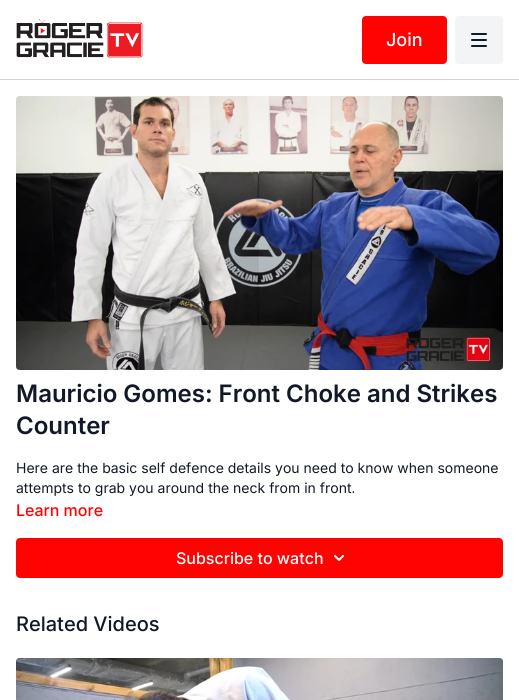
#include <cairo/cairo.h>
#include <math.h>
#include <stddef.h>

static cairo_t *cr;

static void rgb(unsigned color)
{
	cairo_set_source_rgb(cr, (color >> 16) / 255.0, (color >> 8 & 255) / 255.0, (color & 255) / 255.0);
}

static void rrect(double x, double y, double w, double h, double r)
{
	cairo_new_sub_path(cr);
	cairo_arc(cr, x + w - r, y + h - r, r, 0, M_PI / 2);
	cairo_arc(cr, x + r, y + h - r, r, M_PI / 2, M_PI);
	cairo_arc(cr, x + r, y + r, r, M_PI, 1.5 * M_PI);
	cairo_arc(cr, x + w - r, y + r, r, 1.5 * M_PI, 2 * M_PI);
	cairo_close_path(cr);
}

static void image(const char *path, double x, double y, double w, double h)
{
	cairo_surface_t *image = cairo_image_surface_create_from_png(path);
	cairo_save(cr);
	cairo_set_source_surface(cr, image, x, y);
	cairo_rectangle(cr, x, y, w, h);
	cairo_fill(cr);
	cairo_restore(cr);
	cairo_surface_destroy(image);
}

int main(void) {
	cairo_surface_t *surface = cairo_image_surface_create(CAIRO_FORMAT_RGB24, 519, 700);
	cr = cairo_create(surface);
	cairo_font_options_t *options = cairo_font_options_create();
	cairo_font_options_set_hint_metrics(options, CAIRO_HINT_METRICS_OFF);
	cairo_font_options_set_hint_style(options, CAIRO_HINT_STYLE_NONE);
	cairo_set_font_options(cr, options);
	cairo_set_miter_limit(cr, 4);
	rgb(0xffffff);
	cairo_paint(cr);
	rgb(0xd1d5db);
	cairo_rectangle(cr, 0, 79, 519, 1);
	cairo_fill(cr);
	image("img/1.png", 16, 19, 127, 39);
	rgb(0xff0202);
	rrect(362, 16, 85, 48, 4);
	cairo_fill(cr);
	rgb(0xf3f4f6);
	rrect(455, 16, 48, 48, 4);
	cairo_fill(cr);
	image("img/2.png", 471, 33, 16, 14);
	image("img/3.png", 16, 96, 487, 274);
	rgb(0xff0202);
	rrect(16, 538, 487, 40, 4);
	cairo_fill(cr);
	image("img/4.png", 334, 555, 10, 6);
	image("img/5.png", 16, 658, 487, 42);
	cairo_select_font_face(cr, "Inter Medium", CAIRO_FONT_SLANT_NORMAL, CAIRO_FONT_WEIGHT_NORMAL);
	cairo_set_font_size(cr, 18);
	rgb(0xffffff);
	cairo_move_to(cr, 386, 46);
	cairo_show_text(cr, "Join");
	cairo_select_font_face(cr, "Inter SemiBold", CAIRO_FONT_SLANT_NORMAL, CAIRO_FONT_WEIGHT_NORMAL);
	cairo_set_font_size(cr, 24);
	rgb(0x111827);
	cairo_move_to(cr, 16, 402);
	cairo_show_text(cr, "Mauricio Gomes: Front Choke and Strikes");
	cairo_move_to(cr, 16, 434);
	cairo_show_text(cr, "Counter");
	cairo_select_font_face(cr, "Inter", CAIRO_FONT_SLANT_NORMAL, CAIRO_FONT_WEIGHT_NORMAL);
	cairo_set_font_size(cr, 14);
	cairo_move_to(cr, 16, 473);
	cairo_show_text(cr, "Here are the basic self defence details you need to know when someone");
	cairo_move_to(cr, 16, 493);
	cairo_show_text(cr, "attempts to grab you around the neck from in front.");
	cairo_select_font_face(cr, "Inter Medium", CAIRO_FONT_SLANT_NORMAL, CAIRO_FONT_WEIGHT_NORMAL);
	cairo_set_font_size(cr, 16);
	rgb(0xff0202);
	cairo_move_to(cr, 16, 516);
	cairo_show_text(cr, "Learn more");
	rgb(0xffffff);
	cairo_move_to(cr, 176, 564);
	cairo_show_text(cr, "Subscribe to watch");
	cairo_set_font_size(cr, 20);
	rgb(0x111827);
	cairo_move_to(cr, 16, 631);
	cairo_show_text(cr, "Related Videos");
	cairo_surface_write_to_png(surface, "page.png");
	cairo_font_options_destroy(options);
	cairo_destroy(cr);
	cairo_surface_destroy(surface);
	return 0;
}
